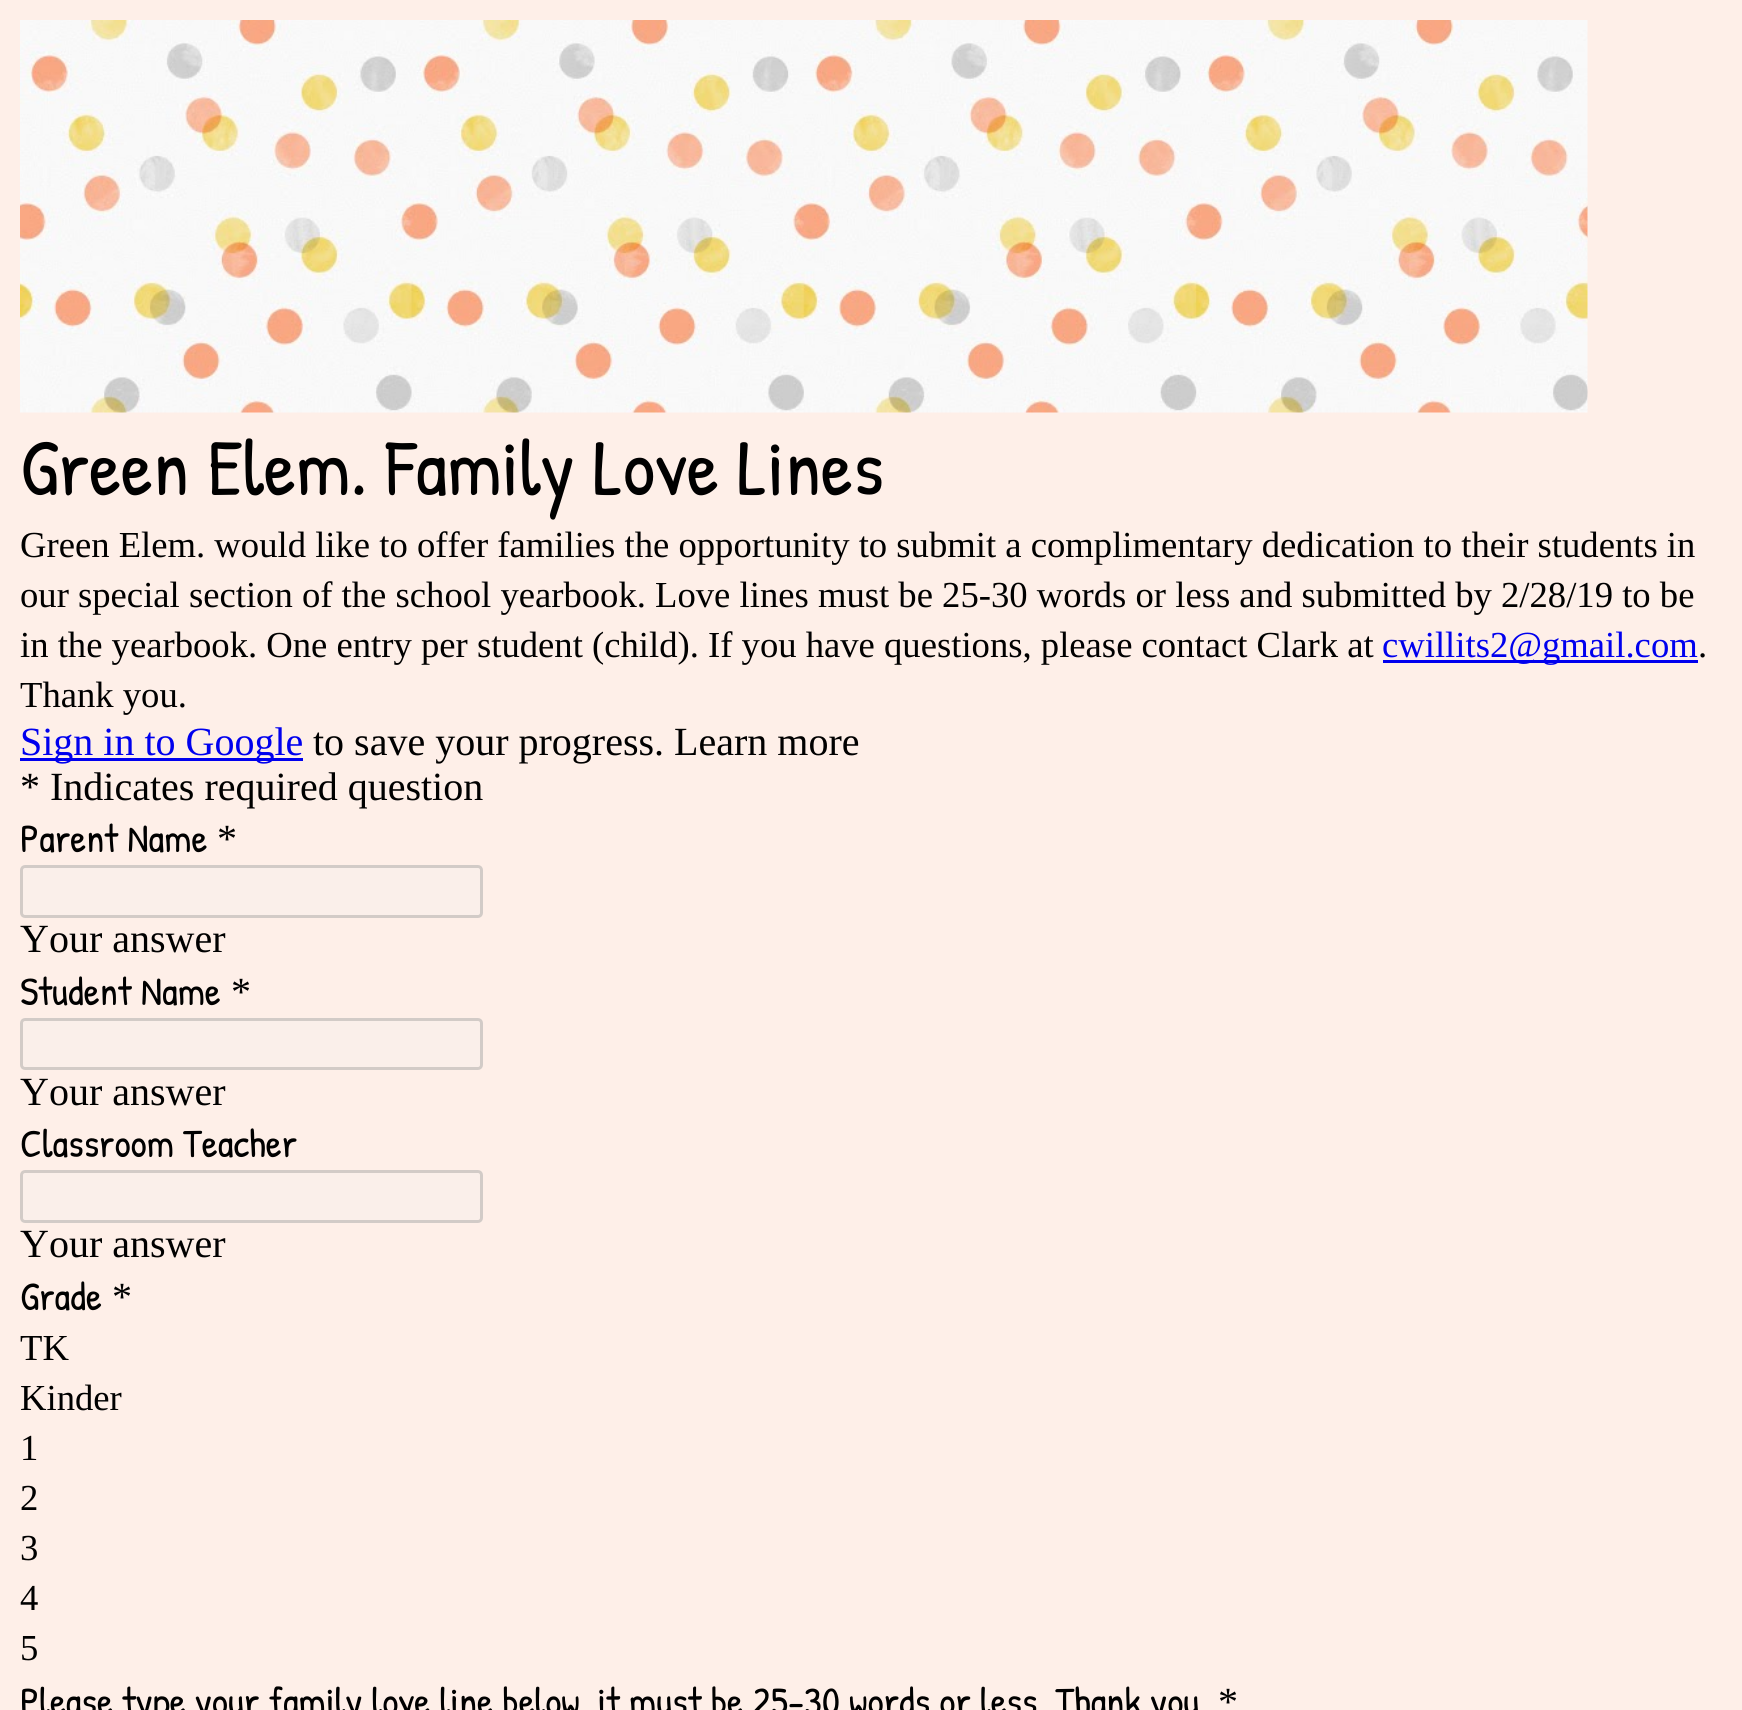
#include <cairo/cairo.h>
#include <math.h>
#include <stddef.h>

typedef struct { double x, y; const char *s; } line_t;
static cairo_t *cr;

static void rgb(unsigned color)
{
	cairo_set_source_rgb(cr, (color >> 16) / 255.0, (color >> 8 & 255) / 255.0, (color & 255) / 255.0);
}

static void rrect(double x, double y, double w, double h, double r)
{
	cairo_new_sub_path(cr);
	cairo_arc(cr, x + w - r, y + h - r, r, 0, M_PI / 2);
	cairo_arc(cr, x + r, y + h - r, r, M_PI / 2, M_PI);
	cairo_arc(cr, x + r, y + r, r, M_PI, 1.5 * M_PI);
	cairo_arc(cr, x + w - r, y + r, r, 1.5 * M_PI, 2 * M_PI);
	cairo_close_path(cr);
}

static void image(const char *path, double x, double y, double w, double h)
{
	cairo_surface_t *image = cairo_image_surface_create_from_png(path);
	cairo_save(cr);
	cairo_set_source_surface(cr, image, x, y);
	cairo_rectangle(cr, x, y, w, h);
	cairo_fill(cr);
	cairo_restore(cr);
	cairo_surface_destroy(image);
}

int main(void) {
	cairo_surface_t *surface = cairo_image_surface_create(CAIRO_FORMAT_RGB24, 1742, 1710);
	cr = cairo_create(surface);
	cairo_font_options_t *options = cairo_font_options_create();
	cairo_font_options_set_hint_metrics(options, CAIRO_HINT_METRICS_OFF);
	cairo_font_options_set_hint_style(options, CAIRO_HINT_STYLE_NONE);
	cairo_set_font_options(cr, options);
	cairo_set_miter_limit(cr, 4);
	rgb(0xfeefe8);
	cairo_paint(cr);
	image("img/1.png", 20, 20, 1568, 393);
	rgb(0x0000ee);
	cairo_rectangle(cr, 1383, 660, 315, 3);
	cairo_fill(cr);
	cairo_rectangle(cr, 20, 758, 283, 3);
	cairo_fill(cr);
	rgb(0xfaefea);
	rrect(21.5, 866.5, 460, 50, 3.5);
	cairo_fill_preserve(cr);
	rgb(0xd2cbc7);
	cairo_set_line_width(cr, 3);
	cairo_stroke(cr);
	rgb(0xfaefea);
	rrect(21.5, 1019.5, 460, 49, 3.5);
	cairo_fill_preserve(cr);
	rgb(0xd2cbc7);
	cairo_stroke(cr);
	rgb(0xfaefea);
	rrect(21.5, 1171.5, 460, 50, 3.5);
	cairo_fill_preserve(cr);
	rgb(0xd2cbc7);
	cairo_stroke(cr);
	cairo_select_font_face(cr, "Patrick Hand", CAIRO_FONT_SLANT_NORMAL, CAIRO_FONT_WEIGHT_NORMAL);
	cairo_set_font_size(cr, 80);
	rgb(0x000000);
	cairo_move_to(cr, 20, 495);
	cairo_show_text(cr, "Green Elem. Family Love Lines");
	cairo_select_font_face(cr, "Liberation Serif", CAIRO_FONT_SLANT_NORMAL, CAIRO_FONT_WEIGHT_NORMAL);
	cairo_set_font_size(cr, 36.65);
	{
		static const line_t items[] = {
			{20, 557, "Green Elem. would like to offer families the opportunity to submit a complimentary dedication to their students in"},
			{20, 607, "our special section of the school yearbook. Love lines must be 25-30 words or less and submitted by 2/28/19 to be"},
			{20, 657, "in the yearbook. One entry per student (child). If you have questions, please contact Clark at"},
		};
		for (size_t i = 0; i < sizeof items / sizeof *items; i++) {
			cairo_move_to(cr, items[i].x, items[i].y);
			cairo_show_text(cr, items[i].s);
		}
	}
	rgb(0x0000ee);
	cairo_move_to(cr, 1382, 657);
	cairo_show_text(cr, "cwillits2@gmail.com");
	rgb(0x000000);
	cairo_move_to(cr, 1698, 657);
	cairo_show_text(cr, ".");
	cairo_move_to(cr, 20, 707);
	cairo_show_text(cr, "Thank you.");
	cairo_set_font_size(cr, 40);
	rgb(0x0000ee);
	cairo_move_to(cr, 20, 755);
	cairo_show_text(cr, "Sign in to Google");
	rgb(0x000000);
	cairo_move_to(cr, 313, 755);
	cairo_show_text(cr, "to save your progress. Learn more");
	cairo_move_to(cr, 20, 800);
	cairo_show_text(cr, "* Indicates required question");
	cairo_select_font_face(cr, "Patrick Hand", CAIRO_FONT_SLANT_NORMAL, CAIRO_FONT_WEIGHT_NORMAL);
	cairo_move_to(cr, 20, 852);
	cairo_show_text(cr, "Parent Name");
	cairo_select_font_face(cr, "Liberation Serif", CAIRO_FONT_SLANT_NORMAL, CAIRO_FONT_WEIGHT_NORMAL);
	cairo_move_to(cr, 217, 852);
	cairo_show_text(cr, "*");
	cairo_move_to(cr, 20, 952);
	cairo_show_text(cr, "Your answer");
	cairo_select_font_face(cr, "Patrick Hand", CAIRO_FONT_SLANT_NORMAL, CAIRO_FONT_WEIGHT_NORMAL);
	cairo_move_to(cr, 20, 1005);
	cairo_show_text(cr, "Student Name");
	cairo_select_font_face(cr, "Liberation Serif", CAIRO_FONT_SLANT_NORMAL, CAIRO_FONT_WEIGHT_NORMAL);
	cairo_move_to(cr, 231, 1005);
	cairo_show_text(cr, "*");
	cairo_move_to(cr, 20, 1105);
	cairo_show_text(cr, "Your answer");
	cairo_select_font_face(cr, "Patrick Hand", CAIRO_FONT_SLANT_NORMAL, CAIRO_FONT_WEIGHT_NORMAL);
	cairo_move_to(cr, 20, 1157);
	cairo_show_text(cr, "Classroom Teacher");
	cairo_select_font_face(cr, "Liberation Serif", CAIRO_FONT_SLANT_NORMAL, CAIRO_FONT_WEIGHT_NORMAL);
	cairo_move_to(cr, 20, 1257);
	cairo_show_text(cr, "Your answer");
	cairo_select_font_face(cr, "Patrick Hand", CAIRO_FONT_SLANT_NORMAL, CAIRO_FONT_WEIGHT_NORMAL);
	cairo_move_to(cr, 20, 1310);
	cairo_show_text(cr, "Grade");
	cairo_select_font_face(cr, "Liberation Serif", CAIRO_FONT_SLANT_NORMAL, CAIRO_FONT_WEIGHT_NORMAL);
	cairo_move_to(cr, 112, 1310);
	cairo_show_text(cr, "*");
	cairo_set_font_size(cr, 36.65);
	{
		static const line_t items[] = {
			{20, 1360, "TK"},
			{20, 1410, "Kinder"},
			{20, 1460, "1"},
			{20, 1510, "2"},
			{20, 1560, "3"},
			{20, 1610, "4"},
			{20, 1660, "5"},
		};
		for (size_t i = 0; i < sizeof items / sizeof *items; i++) {
			cairo_move_to(cr, items[i].x, items[i].y);
			cairo_show_text(cr, items[i].s);
		}
	}
	cairo_select_font_face(cr, "Patrick Hand", CAIRO_FONT_SLANT_NORMAL, CAIRO_FONT_WEIGHT_NORMAL);
	cairo_set_font_size(cr, 40);
	cairo_move_to(cr, 20, 1715);
	cairo_show_text(cr, "Please type your family love line below, it must be 25-30 words or less. Thank you");
	cairo_select_font_face(cr, "Liberation Serif", CAIRO_FONT_SLANT_NORMAL, CAIRO_FONT_WEIGHT_NORMAL);
	cairo_move_to(cr, 1218, 1715);
	cairo_show_text(cr, "*");
	cairo_surface_write_to_png(surface, "page.png");
	cairo_font_options_destroy(options);
	cairo_destroy(cr);
	cairo_surface_destroy(surface);
	return 0;
}
